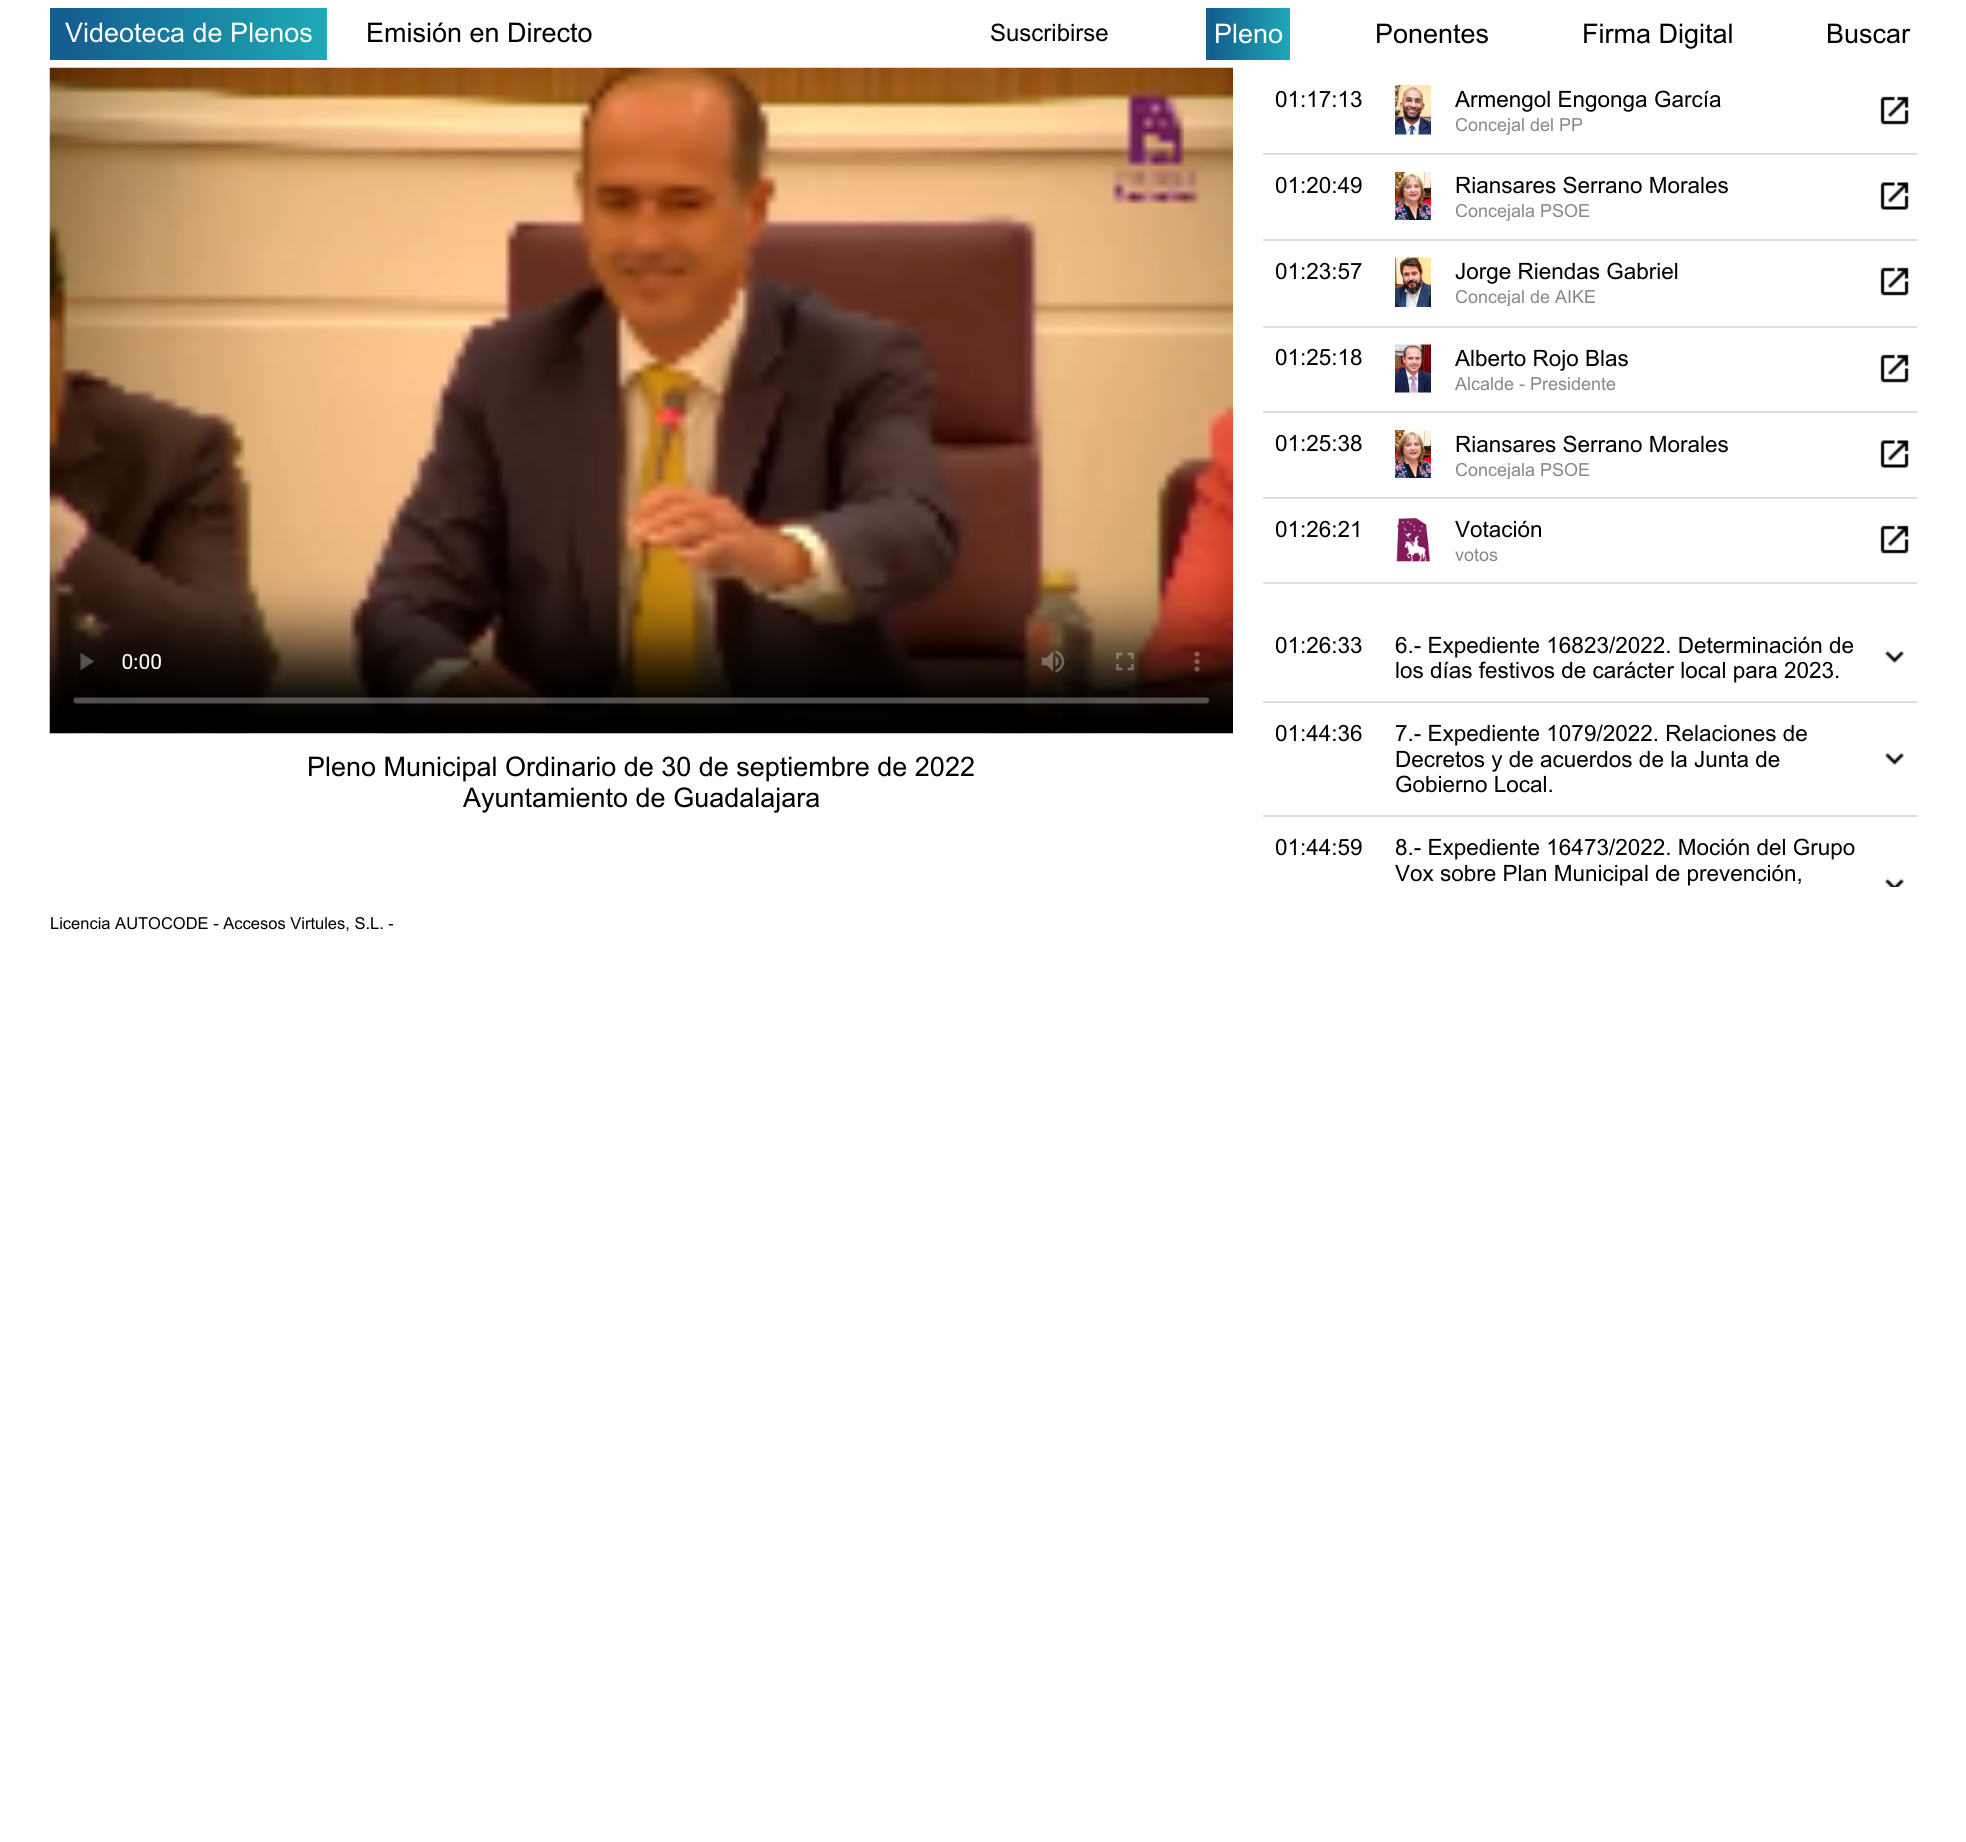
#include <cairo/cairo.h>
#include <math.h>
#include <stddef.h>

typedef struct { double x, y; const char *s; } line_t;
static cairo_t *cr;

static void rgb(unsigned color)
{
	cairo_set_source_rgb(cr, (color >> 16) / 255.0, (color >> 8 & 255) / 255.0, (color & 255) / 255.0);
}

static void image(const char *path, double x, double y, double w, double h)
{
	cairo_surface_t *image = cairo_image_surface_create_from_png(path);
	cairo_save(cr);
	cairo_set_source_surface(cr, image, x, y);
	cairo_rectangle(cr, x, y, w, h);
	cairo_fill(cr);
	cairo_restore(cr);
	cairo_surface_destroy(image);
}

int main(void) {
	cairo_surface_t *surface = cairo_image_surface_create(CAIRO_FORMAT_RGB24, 1966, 1842);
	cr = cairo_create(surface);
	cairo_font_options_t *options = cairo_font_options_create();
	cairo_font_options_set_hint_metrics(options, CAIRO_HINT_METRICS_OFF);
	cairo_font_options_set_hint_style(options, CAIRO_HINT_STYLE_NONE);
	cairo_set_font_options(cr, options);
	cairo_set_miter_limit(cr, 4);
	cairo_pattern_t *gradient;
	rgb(0xffffff);
	cairo_paint(cr);
	gradient = cairo_pattern_create_linear(50, 34, 327, 34);
	cairo_pattern_add_color_stop_rgba(gradient, 0, 0.078, 0.373, 0.569, 1);
	cairo_pattern_add_color_stop_rgba(gradient, 0.08, 0.078, 0.373, 0.569, 1);
	cairo_pattern_add_color_stop_rgba(gradient, 1, 0.118, 0.663, 0.714, 1);
	cairo_set_source(cr, gradient);
	cairo_pattern_destroy(gradient);
	cairo_rectangle(cr, 50, 8, 277, 52);
	cairo_fill(cr);
	gradient = cairo_pattern_create_linear(1206, 35, 1290, 35);
	cairo_pattern_add_color_stop_rgba(gradient, 0, 0.078, 0.373, 0.569, 1);
	cairo_pattern_add_color_stop_rgba(gradient, 0.08, 0.078, 0.373, 0.569, 1);
	cairo_pattern_add_color_stop_rgba(gradient, 1, 0.118, 0.663, 0.714, 1);
	cairo_set_source(cr, gradient);
	cairo_pattern_destroy(gradient);
	cairo_rectangle(cr, 1206, 8, 84, 52);
	cairo_fill(cr);
	image("img/1.png", 49, 67, 1184, 667);
	rgb(0xdddddd);
	cairo_rectangle(cr, 1263, 153, 654, 2);
	cairo_fill(cr);
	image("img/2.png", 1395, 85, 36, 50);
	image("img/3.png", 1880, 96, 29, 29);
	cairo_rectangle(cr, 1263, 239, 654, 2);
	cairo_fill(cr);
	image("img/4.png", 1395, 172, 36, 48);
	image("img/5.png", 1880, 182, 29, 28);
	cairo_rectangle(cr, 1263, 326, 654, 2);
	cairo_fill(cr);
	image("img/6.png", 1395, 257, 36, 50);
	image("img/3.png", 1880, 267, 29, 29);
	cairo_rectangle(cr, 1263, 411, 654, 2);
	cairo_fill(cr);
	image("img/7.png", 1395, 344, 36, 49);
	image("img/3.png", 1880, 354, 29, 29);
	cairo_rectangle(cr, 1263, 497, 654, 2);
	cairo_fill(cr);
	image("img/4.png", 1395, 430, 36, 48);
	image("img/5.png", 1880, 440, 29, 28);
	cairo_rectangle(cr, 1263, 582, 654, 2);
	cairo_fill(cr);
	image("img/8.png", 1396, 517, 35, 45);
	image("img/3.png", 1880, 525, 29, 29);
	cairo_rectangle(cr, 1263, 701, 654, 2);
	cairo_fill(cr);
	image("img/9.png", 1885, 650, 19, 13);
	cairo_rectangle(cr, 1263, 815, 654, 2);
	cairo_fill(cr);
	image("img/9.png", 1885, 752, 19, 13);
	image("img/10.png", 1885, 878, 19, 9);
	cairo_select_font_face(cr, "Arial", CAIRO_FONT_SLANT_NORMAL, CAIRO_FONT_WEIGHT_NORMAL);
	cairo_set_font_size(cr, 27);
	rgb(0xffffff);
	cairo_move_to(cr, 65, 42);
	cairo_show_text(cr, "Videoteca de Plenos");
	rgb(0x000000);
	cairo_move_to(cr, 366, 42);
	cairo_show_text(cr, "Emisión en Directo");
	cairo_set_font_size(cr, 24);
	cairo_move_to(cr, 990, 41);
	cairo_show_text(cr, "Suscribirse");
	cairo_set_font_size(cr, 27);
	rgb(0xffffff);
	cairo_move_to(cr, 1214, 43);
	cairo_show_text(cr, "Pleno");
	rgb(0x000000);
	{
		static const line_t items[] = {
			{1375, 43, "Ponentes"},
			{1582, 43, "Firma Digital"},
			{1826, 43, "Buscar"},
			{307, 776, "Pleno Municipal Ordinario de 30 de septiembre de 2022"},
			{463, 807, "Ayuntamiento de Guadalajara"},
		};
		for (size_t i = 0; i < sizeof items / sizeof *items; i++) {
			cairo_move_to(cr, items[i].x, items[i].y);
			cairo_show_text(cr, items[i].s);
		}
	}
	cairo_set_font_size(cr, 22.5);
	cairo_move_to(cr, 1275, 107);
	cairo_show_text(cr, "01:17:13");
	cairo_move_to(cr, 1455, 107);
	cairo_show_text(cr, "Armengol Engonga García");
	cairo_set_font_size(cr, 18);
	rgb(0x888888);
	cairo_move_to(cr, 1455, 131);
	cairo_show_text(cr, "Concejal del PP");
	cairo_set_font_size(cr, 22.5);
	rgb(0x000000);
	cairo_move_to(cr, 1275, 193);
	cairo_show_text(cr, "01:20:49");
	cairo_move_to(cr, 1455, 193);
	cairo_show_text(cr, "Riansares Serrano Morales");
	cairo_set_font_size(cr, 18);
	rgb(0x888888);
	cairo_move_to(cr, 1455, 217);
	cairo_show_text(cr, "Concejala PSOE");
	cairo_set_font_size(cr, 22.5);
	rgb(0x000000);
	cairo_move_to(cr, 1275, 279);
	cairo_show_text(cr, "01:23:57");
	cairo_move_to(cr, 1455, 279);
	cairo_show_text(cr, "Jorge Riendas Gabriel");
	cairo_save(cr);
	cairo_rectangle(cr, 1455, 284, 405, 22);
	cairo_clip(cr);
	cairo_set_font_size(cr, 18);
	rgb(0x888888);
	cairo_move_to(cr, 1455, 303);
	cairo_show_text(cr, "Concejal de AIKE");
	cairo_restore(cr);
	cairo_move_to(cr, 1275, 365);
	cairo_show_text(cr, "01:25:18");
	cairo_move_to(cr, 1455, 366);
	cairo_show_text(cr, "Alberto Rojo Blas");
	cairo_set_font_size(cr, 18);
	rgb(0x888888);
	cairo_move_to(cr, 1455, 390);
	cairo_show_text(cr, "Alcalde - Presidente");
	cairo_set_font_size(cr, 22.5);
	rgb(0x000000);
	cairo_move_to(cr, 1275, 451);
	cairo_show_text(cr, "01:25:38");
	cairo_move_to(cr, 1455, 452);
	cairo_show_text(cr, "Riansares Serrano Morales");
	cairo_save(cr);
	cairo_rectangle(cr, 1455, 456, 405, 23);
	cairo_clip(cr);
	cairo_set_font_size(cr, 18);
	rgb(0x888888);
	cairo_move_to(cr, 1455, 476);
	cairo_show_text(cr, "Concejala PSOE");
	cairo_restore(cr);
	cairo_move_to(cr, 1275, 537);
	cairo_show_text(cr, "01:26:21");
	cairo_move_to(cr, 1455, 537);
	cairo_show_text(cr, "Votación");
	cairo_set_font_size(cr, 18);
	rgb(0x888888);
	cairo_move_to(cr, 1455, 561);
	cairo_show_text(cr, "votos");
	cairo_set_font_size(cr, 22.5);
	rgb(0x000000);
	{
		static const line_t items[] = {
			{1275, 653, "01:26:33"},
			{1395, 653, "6.- Expediente 16823/2022. Determinación de"},
			{1395, 678, "los días festivos de carácter local para 2023."},
			{1275, 741, "01:44:36"},
			{1395, 741, "7.- Expediente 1079/2022. Relaciones de"},
			{1395, 767, "Decretos y de acuerdos de la Junta de"},
			{1395, 792, "Gobierno Local."},
			{1275, 855, "01:44:59"},
			{1395, 855, "8.- Expediente 16473/2022. Moción del Grupo"},
			{1395, 881, "Vox sobre Plan Municipal de prevención,"},
		};
		for (size_t i = 0; i < sizeof items / sizeof *items; i++) {
			cairo_move_to(cr, items[i].x, items[i].y);
			cairo_show_text(cr, items[i].s);
		}
	}
	cairo_set_font_size(cr, 16.5);
	cairo_move_to(cr, 50, 929);
	cairo_show_text(cr, "Licencia AUTOCODE - Accesos Virtules, S.L. -");
	cairo_surface_write_to_png(surface, "page.png");
	cairo_font_options_destroy(options);
	cairo_destroy(cr);
	cairo_surface_destroy(surface);
	return 0;
}
